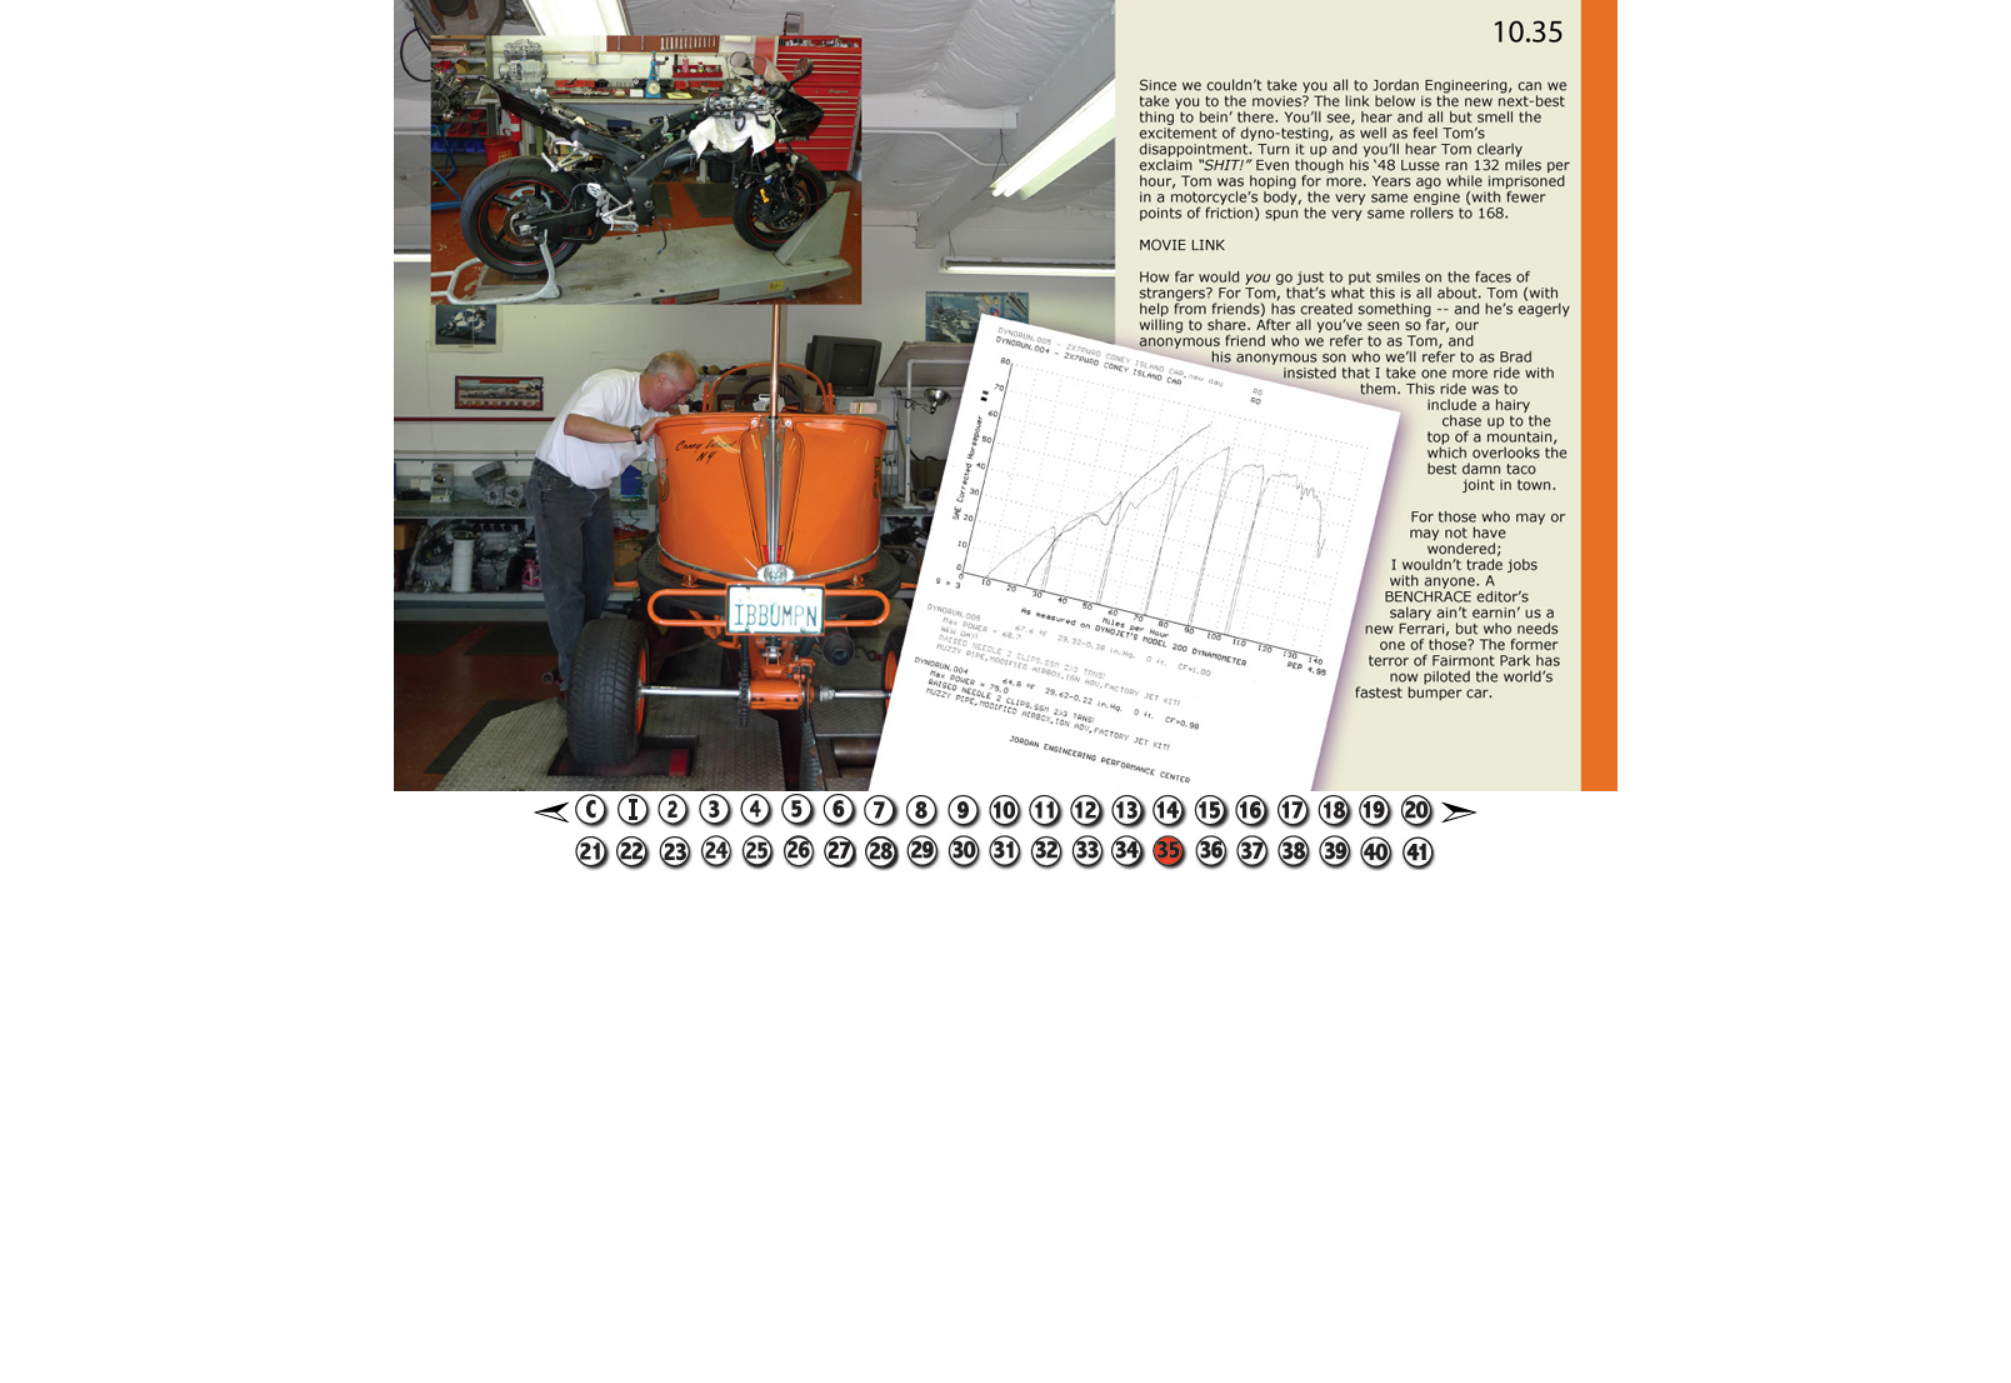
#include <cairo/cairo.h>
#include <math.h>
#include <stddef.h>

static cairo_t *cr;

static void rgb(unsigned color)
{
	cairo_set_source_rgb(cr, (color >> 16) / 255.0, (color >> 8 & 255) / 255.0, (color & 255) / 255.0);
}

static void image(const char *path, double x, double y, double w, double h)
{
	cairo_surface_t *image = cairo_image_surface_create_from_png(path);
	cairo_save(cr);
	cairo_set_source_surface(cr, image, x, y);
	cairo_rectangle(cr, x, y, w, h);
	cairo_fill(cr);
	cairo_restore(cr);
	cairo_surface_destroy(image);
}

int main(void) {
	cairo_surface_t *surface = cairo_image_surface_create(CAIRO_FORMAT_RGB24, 2011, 1383);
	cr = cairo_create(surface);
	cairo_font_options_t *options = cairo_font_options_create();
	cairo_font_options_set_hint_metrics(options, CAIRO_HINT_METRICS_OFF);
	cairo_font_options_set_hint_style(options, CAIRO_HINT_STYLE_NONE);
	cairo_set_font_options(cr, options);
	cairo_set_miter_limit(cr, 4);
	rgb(0xffffff);
	cairo_paint(cr);
	image("img/1.png", 393, 0, 1225, 792);
	image("img/2.png", 533, 801, 37, 23);
	image("img/3.png", 575, 793, 36, 37);
	image("img/4.png", 617, 793, 36, 36);
	image("img/5.png", 657, 793, 35, 36);
	image("img/6.png", 698, 793, 37, 36);
	image("img/7.png", 740, 793, 35, 36);
	image("img/8.png", 781, 793, 37, 36);
	image("img/9.png", 822, 793, 37, 36);
	image("img/10.png", 863, 794, 37, 35);
	image("img/11.png", 905, 794, 36, 36);
	image("img/12.png", 947, 794, 36, 36);
	image("img/13.png", 988, 794, 36, 36);
	image("img/14.png", 1028, 794, 37, 36);
	image("img/15.png", 1070, 794, 36, 36);
	image("img/16.png", 1111, 794, 37, 36);
	image("img/17.png", 1152, 794, 36, 36);
	image("img/18.png", 1193, 794, 37, 36);
	image("img/19.png", 1235, 794, 37, 36);
	image("img/20.png", 1277, 794, 36, 36);
	image("img/21.png", 1317, 794, 37, 36);
	image("img/22.png", 1358, 794, 37, 36);
	image("img/23.png", 1400, 794, 36, 36);
	image("img/24.png", 1441, 801, 37, 23);
	image("img/25.png", 575, 836, 36, 36);
	image("img/26.png", 616, 836, 36, 36);
	image("img/27.png", 658, 836, 36, 36);
	image("img/28.png", 700, 835, 35, 36);
	image("img/29.png", 741, 835, 35, 36);
	image("img/30.png", 782, 835, 35, 36);
	image("img/31.png", 823, 835, 35, 34);
	image("img/32.png", 864, 835, 36, 37);
	image("img/33.png", 906, 835, 35, 36);
	image("img/34.png", 947, 835, 36, 36);
	image("img/35.png", 988, 835, 36, 36);
	image("img/36.png", 1030, 835, 35, 36);
	image("img/37.png", 1070, 835, 36, 36);
	image("img/38.png", 1111, 835, 37, 36);
	image("img/39.png", 1152, 835, 37, 36);
	image("img/40.png", 1194, 835, 36, 36);
	image("img/41.png", 1236, 835, 35, 36);
	image("img/42.png", 1277, 835, 36, 36);
	image("img/43.png", 1318, 835, 36, 36);
	image("img/44.png", 1359, 836, 36, 36);
	image("img/45.png", 1401, 836, 36, 35);
	cairo_surface_write_to_png(surface, "page.png");
	cairo_font_options_destroy(options);
	cairo_destroy(cr);
	cairo_surface_destroy(surface);
	return 0;
}
